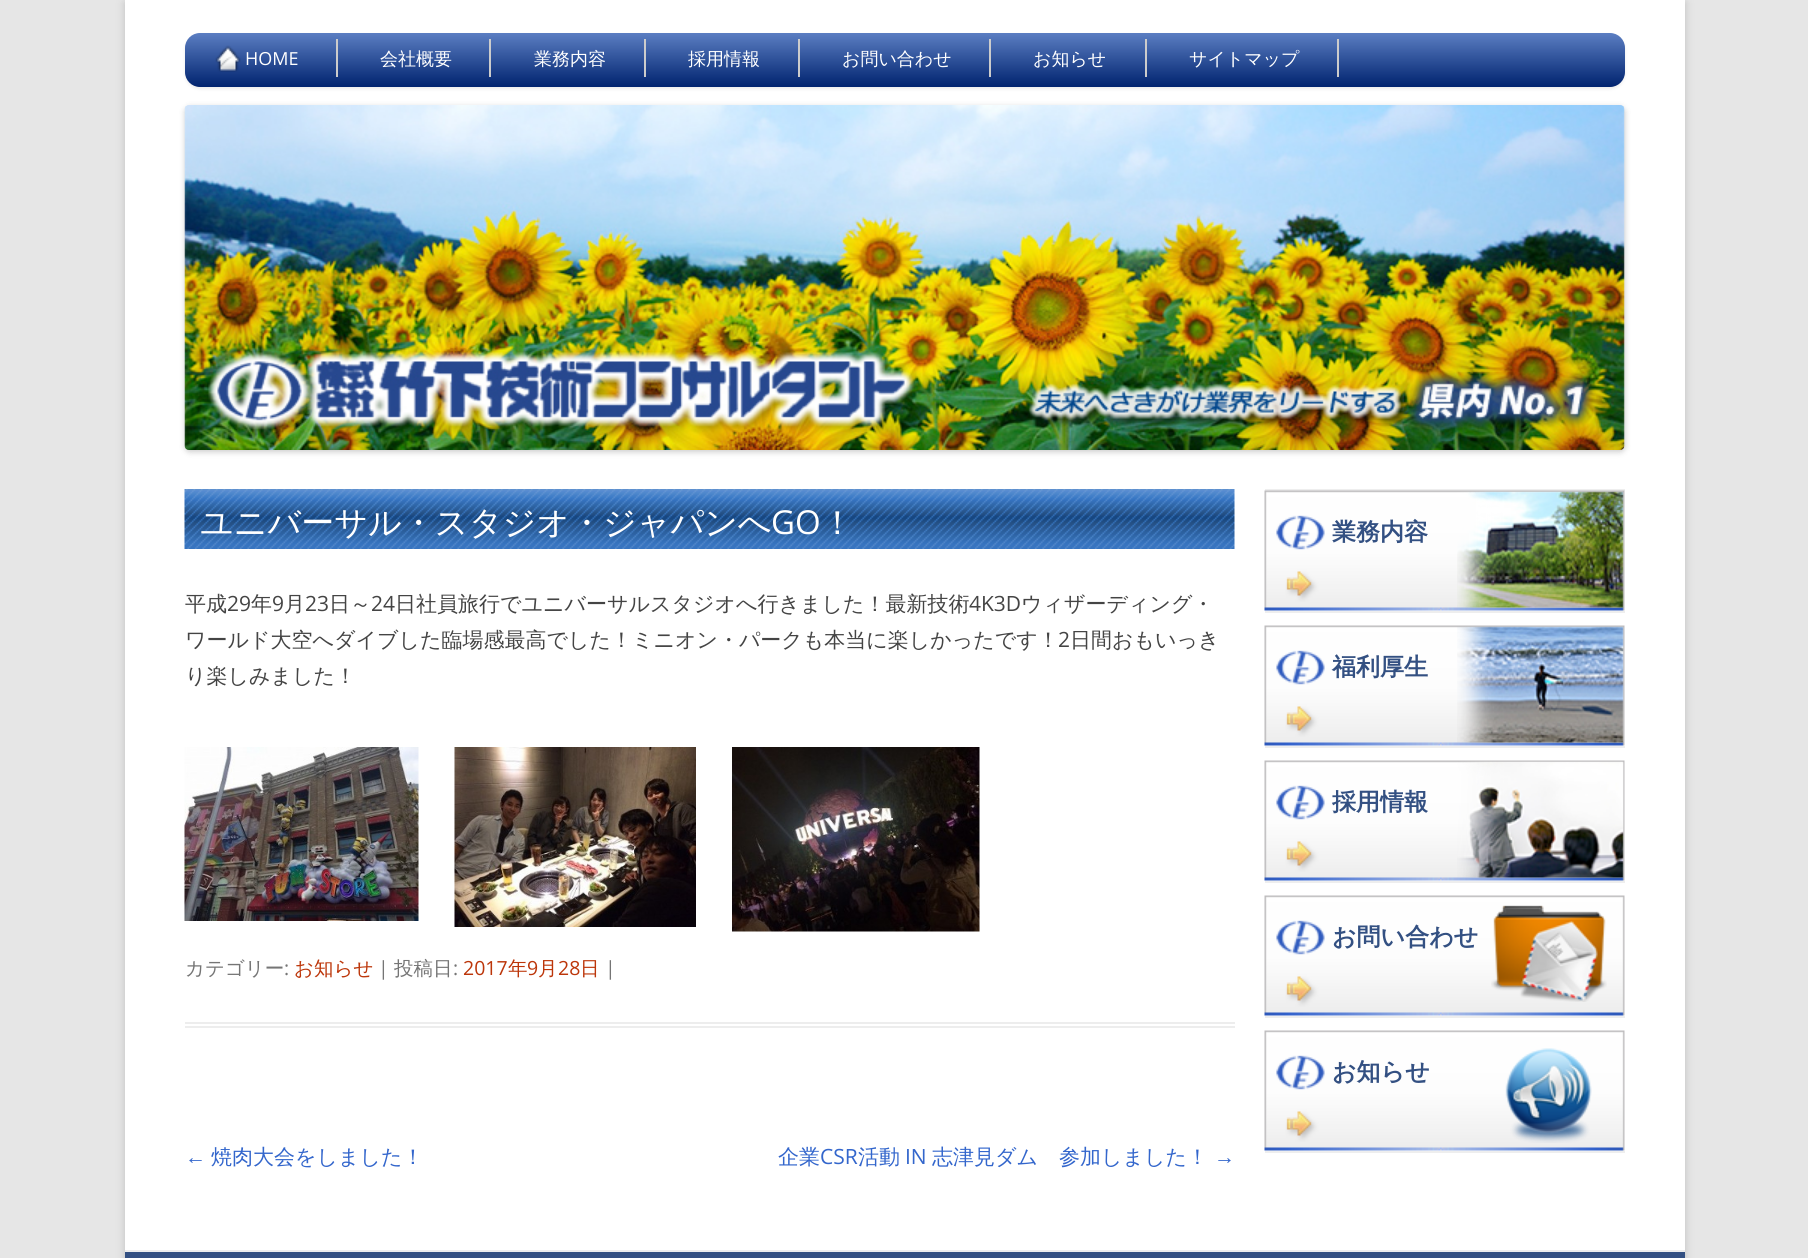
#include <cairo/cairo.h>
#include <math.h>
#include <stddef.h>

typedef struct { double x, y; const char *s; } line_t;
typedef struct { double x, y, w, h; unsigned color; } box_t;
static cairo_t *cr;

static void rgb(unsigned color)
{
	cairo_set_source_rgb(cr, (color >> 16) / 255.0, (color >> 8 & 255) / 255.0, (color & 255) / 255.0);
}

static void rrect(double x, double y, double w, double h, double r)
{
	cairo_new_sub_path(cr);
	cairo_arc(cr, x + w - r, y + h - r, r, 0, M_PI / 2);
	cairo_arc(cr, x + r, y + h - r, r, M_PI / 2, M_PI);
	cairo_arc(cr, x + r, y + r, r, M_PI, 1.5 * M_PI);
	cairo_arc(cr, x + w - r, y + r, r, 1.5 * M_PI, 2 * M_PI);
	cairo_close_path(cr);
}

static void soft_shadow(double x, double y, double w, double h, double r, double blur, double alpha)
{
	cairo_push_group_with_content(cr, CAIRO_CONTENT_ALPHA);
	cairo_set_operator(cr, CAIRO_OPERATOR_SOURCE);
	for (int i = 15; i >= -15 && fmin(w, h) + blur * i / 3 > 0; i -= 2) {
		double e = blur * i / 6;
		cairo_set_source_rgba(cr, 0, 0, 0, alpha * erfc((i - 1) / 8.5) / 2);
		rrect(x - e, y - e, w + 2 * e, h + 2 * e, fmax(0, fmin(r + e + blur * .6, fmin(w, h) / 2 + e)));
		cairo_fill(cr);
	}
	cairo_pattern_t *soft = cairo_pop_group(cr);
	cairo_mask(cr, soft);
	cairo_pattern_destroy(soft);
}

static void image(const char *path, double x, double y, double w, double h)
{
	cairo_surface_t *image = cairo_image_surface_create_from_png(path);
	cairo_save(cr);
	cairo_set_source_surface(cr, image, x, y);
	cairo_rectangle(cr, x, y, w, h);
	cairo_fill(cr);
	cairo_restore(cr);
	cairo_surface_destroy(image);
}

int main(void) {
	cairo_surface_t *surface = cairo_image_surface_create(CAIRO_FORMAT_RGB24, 1808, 1258);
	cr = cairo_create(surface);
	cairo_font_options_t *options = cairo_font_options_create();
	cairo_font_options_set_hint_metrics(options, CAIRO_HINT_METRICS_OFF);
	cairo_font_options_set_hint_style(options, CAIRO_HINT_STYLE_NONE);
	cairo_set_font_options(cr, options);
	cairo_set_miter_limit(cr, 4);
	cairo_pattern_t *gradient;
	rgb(0xe6e6e6);
	cairo_paint(cr);
	rgb(0x646464);
	soft_shadow(125, 3, 1560, 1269, 0, 4.5, 0.3);
	rgb(0xffffff);
	cairo_rectangle(cr, 125, 0, 1560, 1250);
	cairo_fill(cr);
	rgb(0x404040);
	soft_shadow(185, 35, 1440, 54, 15, 1.5, 0.1);
	gradient = cairo_pattern_create_linear(905, 33, 905, 87);
	cairo_pattern_add_color_stop_rgba(gradient, 0, 0.357, 0.494, 0.761, 1);
	cairo_pattern_add_color_stop_rgba(gradient, 1, 0, 0.137, 0.435, 1);
	cairo_set_source(cr, gradient);
	cairo_pattern_destroy(gradient);
	rrect(185, 33, 1440, 54, 15);
	cairo_fill(cr);
	image("img/1.png", 215, 45, 26, 27);
	{
		static const box_t items[] = {
			{336, 39, 2, 38, 0xcccccc},
			{489, 39, 2, 38, 0xcccccc},
			{644, 39, 2, 38, 0xcccccc},
			{798, 39, 2, 38, 0xcccccc},
			{989, 39, 2, 38, 0xcccccc},
			{1145, 39, 2, 38, 0xcccccc},
			{1337, 39, 2, 38, 0xcccccc},
		};
		for (size_t i = 0; i < sizeof items / sizeof *items; i++) {
			rgb(items[i].color);
			cairo_rectangle(cr, items[i].x, items[i].y, items[i].w, items[i].h);
			cairo_fill(cr);
		}
	}
	rgb(0x000000);
	soft_shadow(185, 107, 1440, 345, 5, 3, 0.2);
	image("img/2.png", 184, 105, 1441, 345);
	rgb(0xededed);
	cairo_rectangle(cr, 185, 1022, 1050, 2);
	cairo_fill(cr);
	cairo_rectangle(cr, 185, 1026, 1050, 2);
	cairo_fill(cr);
	image("img/3.png", 184, 489, 1051, 60);
	image("img/4.png", 184, 747, 235, 174);
	image("img/5.png", 454, 747, 242, 180);
	image("img/6.png", 732, 747, 248, 185);
	rgb(0xeeeeee);
	cairo_rectangle(cr, 1265, 489, 360, 2);
	cairo_fill(cr);
	image("img/7.png", 1264, 490, 361, 121);
	image("img/8.png", 1457, 491, 167, 117);
	cairo_rectangle(cr, 1265, 611, 360, 2);
	cairo_fill(cr);
	image("img/9.png", 1264, 625, 361, 121);
	image("img/10.png", 1457, 626, 167, 117);
	cairo_rectangle(cr, 1265, 746, 360, 2);
	cairo_fill(cr);
	image("img/9.png", 1264, 760, 361, 121);
	image("img/11.png", 1457, 761, 167, 117);
	cairo_rectangle(cr, 1265, 881, 360, 2);
	cairo_fill(cr);
	image("img/9.png", 1264, 895, 361, 121);
	image("img/12.png", 1491, 905, 116, 97);
	cairo_rectangle(cr, 1265, 1016, 360, 2);
	cairo_fill(cr);
	image("img/9.png", 1264, 1030, 361, 121);
	image("img/13.png", 1505, 1048, 87, 95);
	{
		static const box_t items[] = {
			{1265, 1151, 360, 2, 0xeeeeee},
			{125, 1252, 1560, 6, 0x335082},
			{125, 1250, 1560, 2, 0xededed},
		};
		for (size_t i = 0; i < sizeof items / sizeof *items; i++) {
			rgb(items[i].color);
			cairo_rectangle(cr, items[i].x, items[i].y, items[i].w, items[i].h);
			cairo_fill(cr);
		}
	}
	cairo_select_font_face(cr, "Open Sans", CAIRO_FONT_SLANT_NORMAL, CAIRO_FONT_WEIGHT_NORMAL);
	cairo_set_font_size(cr, 18);
	rgb(0xffffff);
	cairo_move_to(cr, 245, 65);
	cairo_show_text(cr, "HOME");
	cairo_select_font_face(cr, "WenQuanYi Zen Hei Medium", CAIRO_FONT_SLANT_NORMAL, CAIRO_FONT_WEIGHT_NORMAL);
	{
		static const line_t items[] = {
			{380, 65, "会社概要"},
			{534, 65, "業務内容"},
			{688, 65, "採用情報"},
			{842, 65, "お問い合わせ"},
			{1033, 65, "お知らせ"},
			{1189, 65, "サイトマップ"},
		};
		for (size_t i = 0; i < sizeof items / sizeof *items; i++) {
			cairo_move_to(cr, items[i].x, items[i].y);
			cairo_show_text(cr, items[i].s);
		}
	}
	cairo_set_font_size(cr, 33);
	cairo_move_to(cr, 200, 534);
	cairo_show_text(cr, "ユニバーサル・スタジオ・ジャパンへ");
	cairo_select_font_face(cr, "Open Sans", CAIRO_FONT_SLANT_NORMAL, CAIRO_FONT_WEIGHT_NORMAL);
	cairo_move_to(cr, 771, 534);
	cairo_show_text(cr, "GO");
	cairo_select_font_face(cr, "WenQuanYi Zen Hei Medium", CAIRO_FONT_SLANT_NORMAL, CAIRO_FONT_WEIGHT_NORMAL);
	cairo_move_to(cr, 821, 534);
	cairo_show_text(cr, "！");
	cairo_set_font_size(cr, 21);
	rgb(0x444444);
	cairo_move_to(cr, 185, 611);
	cairo_show_text(cr, "平成");
	cairo_select_font_face(cr, "Open Sans", CAIRO_FONT_SLANT_NORMAL, CAIRO_FONT_WEIGHT_NORMAL);
	cairo_move_to(cr, 227, 611);
	cairo_show_text(cr, "29");
	cairo_select_font_face(cr, "WenQuanYi Zen Hei Medium", CAIRO_FONT_SLANT_NORMAL, CAIRO_FONT_WEIGHT_NORMAL);
	cairo_move_to(cr, 251, 611);
	cairo_show_text(cr, "年");
	cairo_select_font_face(cr, "Open Sans", CAIRO_FONT_SLANT_NORMAL, CAIRO_FONT_WEIGHT_NORMAL);
	cairo_move_to(cr, 272, 611);
	cairo_show_text(cr, "9");
	cairo_select_font_face(cr, "WenQuanYi Zen Hei Medium", CAIRO_FONT_SLANT_NORMAL, CAIRO_FONT_WEIGHT_NORMAL);
	cairo_move_to(cr, 284, 611);
	cairo_show_text(cr, "月");
	cairo_select_font_face(cr, "Open Sans", CAIRO_FONT_SLANT_NORMAL, CAIRO_FONT_WEIGHT_NORMAL);
	cairo_move_to(cr, 305, 611);
	cairo_show_text(cr, "23");
	cairo_select_font_face(cr, "WenQuanYi Zen Hei Medium", CAIRO_FONT_SLANT_NORMAL, CAIRO_FONT_WEIGHT_NORMAL);
	cairo_move_to(cr, 329, 611);
	cairo_show_text(cr, "日～");
	cairo_select_font_face(cr, "Open Sans", CAIRO_FONT_SLANT_NORMAL, CAIRO_FONT_WEIGHT_NORMAL);
	cairo_move_to(cr, 371, 611);
	cairo_show_text(cr, "24");
	cairo_select_font_face(cr, "WenQuanYi Zen Hei Medium", CAIRO_FONT_SLANT_NORMAL, CAIRO_FONT_WEIGHT_NORMAL);
	cairo_move_to(cr, 395, 611);
	cairo_show_text(cr, "日社員旅行でユニバーサルスタジオへ行きました！最新技術");
	cairo_select_font_face(cr, "Open Sans", CAIRO_FONT_SLANT_NORMAL, CAIRO_FONT_WEIGHT_NORMAL);
	cairo_move_to(cr, 969, 611);
	cairo_show_text(cr, "4K3D");
	cairo_select_font_face(cr, "WenQuanYi Zen Hei Medium", CAIRO_FONT_SLANT_NORMAL, CAIRO_FONT_WEIGHT_NORMAL);
	cairo_move_to(cr, 1021, 611);
	cairo_show_text(cr, "ウィザーディング・");
	cairo_move_to(cr, 185, 647);
	cairo_show_text(cr, "ワールド大空へダイブした臨場感最高でした！ミニオン・パークも本当に楽しかったです！");
	cairo_select_font_face(cr, "Open Sans", CAIRO_FONT_SLANT_NORMAL, CAIRO_FONT_WEIGHT_NORMAL);
	cairo_move_to(cr, 1058, 647);
	cairo_show_text(cr, "2");
	cairo_select_font_face(cr, "WenQuanYi Zen Hei Medium", CAIRO_FONT_SLANT_NORMAL, CAIRO_FONT_WEIGHT_NORMAL);
	cairo_move_to(cr, 1070, 647);
	cairo_show_text(cr, "日間おもいっき");
	cairo_move_to(cr, 185, 683);
	cairo_show_text(cr, "り楽しみました！");
	cairo_set_font_size(cr, 19.5);
	rgb(0x757575);
	cairo_move_to(cr, 185, 975);
	cairo_show_text(cr, "カテゴリー");
	cairo_select_font_face(cr, "Open Sans", CAIRO_FONT_SLANT_NORMAL, CAIRO_FONT_WEIGHT_NORMAL);
	cairo_move_to(cr, 284, 975);
	cairo_show_text(cr, ":");
	cairo_select_font_face(cr, "WenQuanYi Zen Hei Medium", CAIRO_FONT_SLANT_NORMAL, CAIRO_FONT_WEIGHT_NORMAL);
	rgb(0xbc360a);
	cairo_move_to(cr, 294, 975);
	cairo_show_text(cr, "お知らせ");
	cairo_select_font_face(cr, "Open Sans", CAIRO_FONT_SLANT_NORMAL, CAIRO_FONT_WEIGHT_NORMAL);
	rgb(0x757575);
	cairo_move_to(cr, 378, 975);
	cairo_show_text(cr, "|");
	cairo_select_font_face(cr, "WenQuanYi Zen Hei Medium", CAIRO_FONT_SLANT_NORMAL, CAIRO_FONT_WEIGHT_NORMAL);
	cairo_move_to(cr, 394, 975);
	cairo_show_text(cr, "投稿日");
	cairo_select_font_face(cr, "Open Sans", CAIRO_FONT_SLANT_NORMAL, CAIRO_FONT_WEIGHT_NORMAL);
	cairo_move_to(cr, 453, 975);
	cairo_show_text(cr, ":");
	rgb(0xbc360a);
	cairo_move_to(cr, 463, 975);
	cairo_show_text(cr, "2017");
	cairo_select_font_face(cr, "WenQuanYi Zen Hei Medium", CAIRO_FONT_SLANT_NORMAL, CAIRO_FONT_WEIGHT_NORMAL);
	cairo_move_to(cr, 508, 975);
	cairo_show_text(cr, "年");
	cairo_select_font_face(cr, "Open Sans", CAIRO_FONT_SLANT_NORMAL, CAIRO_FONT_WEIGHT_NORMAL);
	cairo_move_to(cr, 527, 975);
	cairo_show_text(cr, "9");
	cairo_select_font_face(cr, "WenQuanYi Zen Hei Medium", CAIRO_FONT_SLANT_NORMAL, CAIRO_FONT_WEIGHT_NORMAL);
	cairo_move_to(cr, 538, 975);
	cairo_show_text(cr, "月");
	cairo_select_font_face(cr, "Open Sans", CAIRO_FONT_SLANT_NORMAL, CAIRO_FONT_WEIGHT_NORMAL);
	cairo_move_to(cr, 558, 975);
	cairo_show_text(cr, "28");
	cairo_select_font_face(cr, "WenQuanYi Zen Hei Medium", CAIRO_FONT_SLANT_NORMAL, CAIRO_FONT_WEIGHT_NORMAL);
	cairo_move_to(cr, 580, 975);
	cairo_show_text(cr, "日");
	cairo_select_font_face(cr, "Open Sans", CAIRO_FONT_SLANT_NORMAL, CAIRO_FONT_WEIGHT_NORMAL);
	rgb(0x757575);
	cairo_move_to(cr, 605, 975);
	cairo_show_text(cr, "|");
	cairo_select_font_face(cr, "Liberation Sans", CAIRO_FONT_SLANT_NORMAL, CAIRO_FONT_WEIGHT_NORMAL);
	cairo_set_font_size(cr, 21);
	rgb(0x3366cc);
	cairo_move_to(cr, 185, 1164);
	cairo_show_text(cr, "←");
	cairo_select_font_face(cr, "WenQuanYi Zen Hei Medium", CAIRO_FONT_SLANT_NORMAL, CAIRO_FONT_WEIGHT_NORMAL);
	cairo_move_to(cr, 211, 1164);
	cairo_show_text(cr, "焼肉大会をしました！");
	cairo_move_to(cr, 778, 1164);
	cairo_show_text(cr, "企業");
	cairo_select_font_face(cr, "Open Sans", CAIRO_FONT_SLANT_NORMAL, CAIRO_FONT_WEIGHT_NORMAL);
	cairo_move_to(cr, 820, 1164);
	cairo_show_text(cr, "CSR");
	cairo_select_font_face(cr, "WenQuanYi Zen Hei Medium", CAIRO_FONT_SLANT_NORMAL, CAIRO_FONT_WEIGHT_NORMAL);
	cairo_move_to(cr, 858, 1164);
	cairo_show_text(cr, "活動");
	cairo_select_font_face(cr, "Open Sans", CAIRO_FONT_SLANT_NORMAL, CAIRO_FONT_WEIGHT_NORMAL);
	cairo_move_to(cr, 905, 1164);
	cairo_show_text(cr, "IN");
	cairo_select_font_face(cr, "WenQuanYi Zen Hei Medium", CAIRO_FONT_SLANT_NORMAL, CAIRO_FONT_WEIGHT_NORMAL);
	cairo_move_to(cr, 932, 1164);
	cairo_show_text(cr, "志津見ダム　参加しました！");
	cairo_select_font_face(cr, "Liberation Sans", CAIRO_FONT_SLANT_NORMAL, CAIRO_FONT_WEIGHT_NORMAL);
	cairo_move_to(cr, 1214, 1164);
	cairo_show_text(cr, "→");
	cairo_select_font_face(cr, "WenQuanYi Zen Hei", CAIRO_FONT_SLANT_NORMAL, CAIRO_FONT_WEIGHT_BOLD);
	cairo_set_font_size(cr, 24);
	rgb(0x335082);
	{
		static const line_t items[] = {
			{1332, 540, "業務内容"},
			{1332, 675, "福利厚生"},
			{1332, 810, "採用情報"},
			{1332, 945, "お問い合わせ"},
			{1332, 1080, "お知らせ"},
		};
		for (size_t i = 0; i < sizeof items / sizeof *items; i++) {
			cairo_move_to(cr, items[i].x, items[i].y);
			cairo_show_text(cr, items[i].s);
		}
	}
	cairo_surface_write_to_png(surface, "page.png");
	cairo_font_options_destroy(options);
	cairo_destroy(cr);
	cairo_surface_destroy(surface);
	return 0;
}
